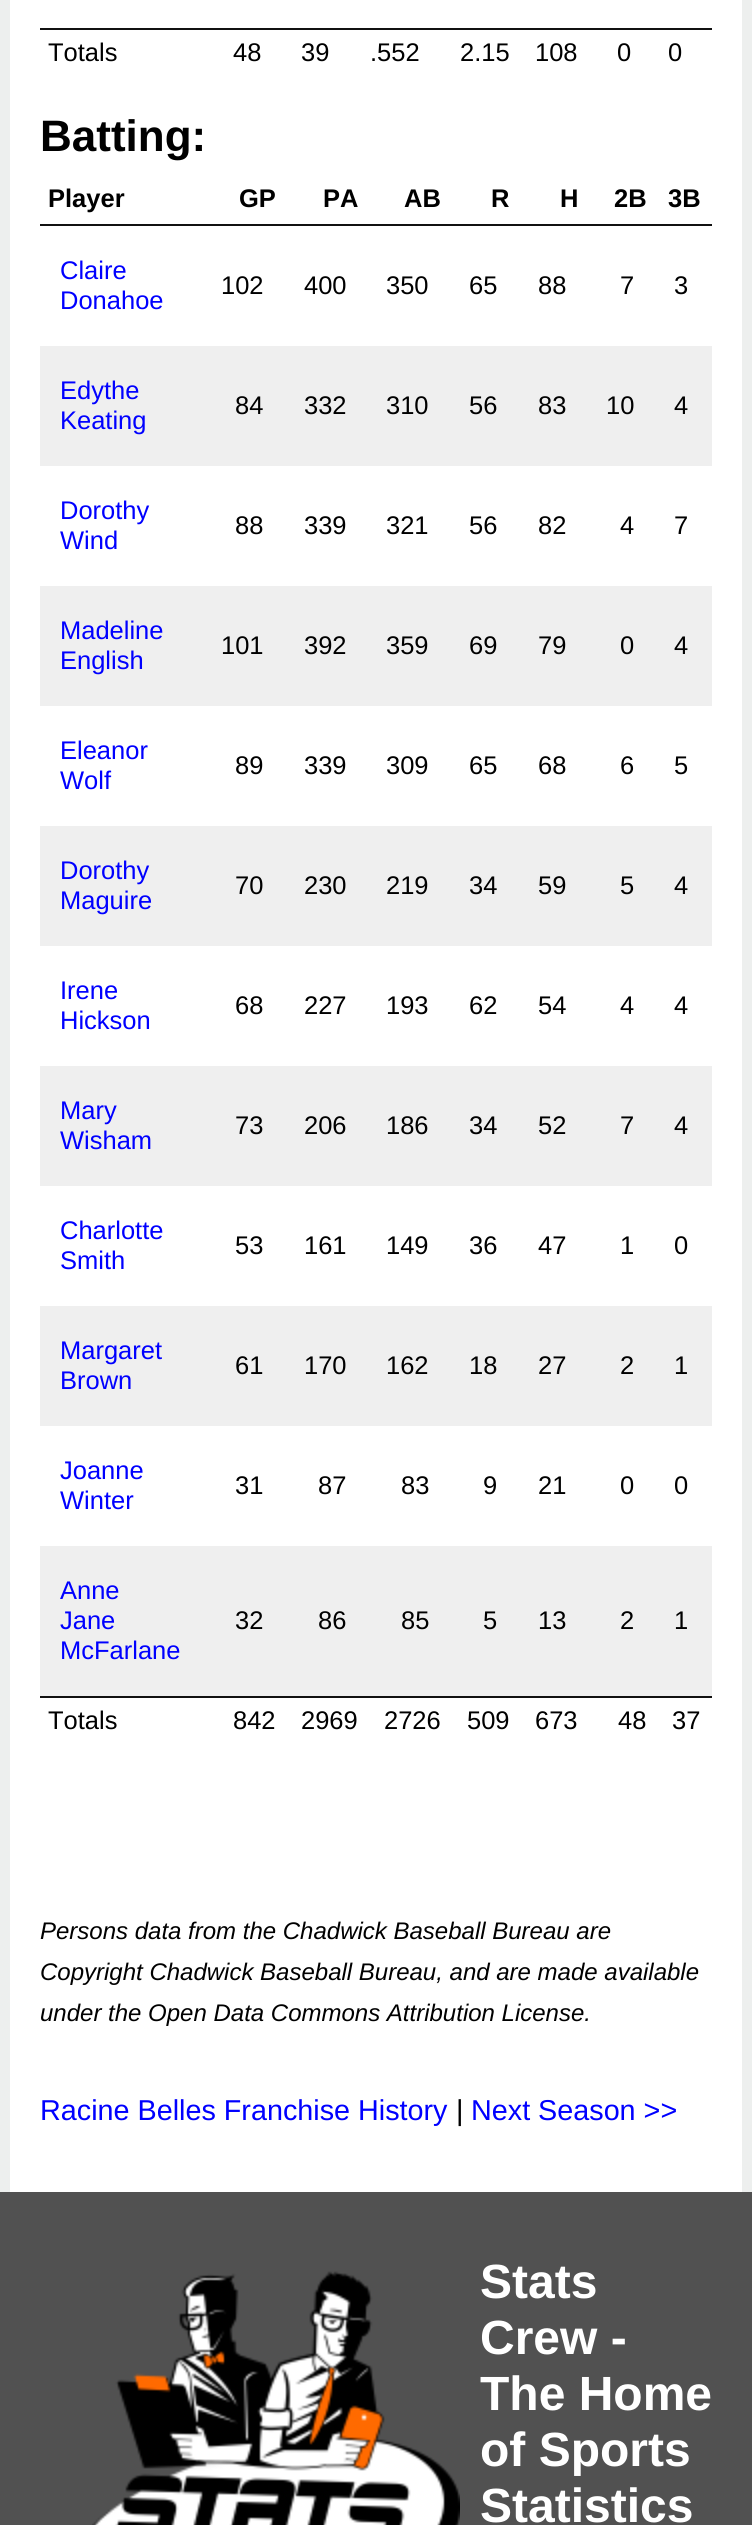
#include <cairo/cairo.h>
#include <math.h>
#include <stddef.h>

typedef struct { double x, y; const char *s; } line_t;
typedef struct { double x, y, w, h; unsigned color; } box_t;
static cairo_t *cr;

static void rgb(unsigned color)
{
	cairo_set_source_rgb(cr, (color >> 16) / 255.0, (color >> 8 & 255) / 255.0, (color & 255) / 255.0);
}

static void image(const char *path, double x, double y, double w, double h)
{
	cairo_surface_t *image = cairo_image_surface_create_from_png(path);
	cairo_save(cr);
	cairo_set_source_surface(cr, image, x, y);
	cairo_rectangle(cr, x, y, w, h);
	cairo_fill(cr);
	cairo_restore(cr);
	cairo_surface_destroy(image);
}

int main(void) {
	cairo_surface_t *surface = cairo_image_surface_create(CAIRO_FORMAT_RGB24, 752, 2525);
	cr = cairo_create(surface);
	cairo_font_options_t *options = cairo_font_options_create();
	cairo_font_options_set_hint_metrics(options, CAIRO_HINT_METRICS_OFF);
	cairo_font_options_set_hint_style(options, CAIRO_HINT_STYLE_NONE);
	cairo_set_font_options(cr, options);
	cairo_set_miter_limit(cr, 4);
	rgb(0xedefee);
	cairo_paint(cr);
	{
		static const box_t items[] = {
			{10, 0, 732, 2192, 0xffffff},
			{40, 28, 672, 2, 0x111111},
			{40, 224, 672, 2, 0x111111},
			{40, 346, 672, 120, 0xefefef},
			{40, 586, 672, 120, 0xefefef},
			{40, 826, 672, 120, 0xefefef},
			{40, 1066, 672, 120, 0xefefef},
			{40, 1306, 672, 120, 0xefefef},
			{40, 1546, 672, 150, 0xefefef},
			{40, 1696, 672, 2, 0x111111},
			{0, 2192, 752, 333, 0x515151},
		};
		for (size_t i = 0; i < sizeof items / sizeof *items; i++) {
			rgb(items[i].color);
			cairo_rectangle(cr, items[i].x, items[i].y, items[i].w, items[i].h);
			cairo_fill(cr);
		}
	}
	image("img/1.png", 92, 2271, 368, 254);
	cairo_select_font_face(cr, "Liberation Sans", CAIRO_FONT_SLANT_NORMAL, CAIRO_FONT_WEIGHT_NORMAL);
	cairo_set_font_size(cr, 25.5);
	rgb(0x000000);
	{
		static const line_t items[] = {
			{48, 61, "Totals"},
			{233, 61, "48"},
			{301, 61, "39"},
			{370, 61, ".552"},
			{460, 61, "2.15"},
			{535, 61, "108"},
			{617, 61, "0"},
			{668, 61, "0"},
		};
		for (size_t i = 0; i < sizeof items / sizeof *items; i++) {
			cairo_move_to(cr, items[i].x, items[i].y);
			cairo_show_text(cr, items[i].s);
		}
	}
	cairo_select_font_face(cr, "Liberation Sans", CAIRO_FONT_SLANT_NORMAL, CAIRO_FONT_WEIGHT_BOLD);
	cairo_set_font_size(cr, 44);
	cairo_move_to(cr, 40, 151);
	cairo_show_text(cr, "Batting:");
	cairo_set_font_size(cr, 25.5);
	{
		static const line_t items[] = {
			{48, 207, "Player"},
			{239, 207, "GP"},
			{323, 207, "PA"},
			{404, 207, "AB"},
			{491, 207, "R"},
			{560, 207, "H"},
			{614, 207, "2B"},
			{668, 207, "3B"},
		};
		for (size_t i = 0; i < sizeof items / sizeof *items; i++) {
			cairo_move_to(cr, items[i].x, items[i].y);
			cairo_show_text(cr, items[i].s);
		}
	}
	cairo_select_font_face(cr, "Liberation Sans", CAIRO_FONT_SLANT_NORMAL, CAIRO_FONT_WEIGHT_NORMAL);
	rgb(0x0000ff);
	cairo_move_to(cr, 60, 279);
	cairo_show_text(cr, "Claire");
	cairo_move_to(cr, 60, 309);
	cairo_show_text(cr, "Donahoe");
	rgb(0x000000);
	{
		static const line_t items[] = {
			{221, 294, "102"},
			{304, 294, "400"},
			{386, 294, "350"},
			{469, 294, "65"},
			{538, 294, "88"},
			{620, 294, "7"},
			{674, 294, "3"},
		};
		for (size_t i = 0; i < sizeof items / sizeof *items; i++) {
			cairo_move_to(cr, items[i].x, items[i].y);
			cairo_show_text(cr, items[i].s);
		}
	}
	rgb(0x0000ff);
	cairo_move_to(cr, 60, 399);
	cairo_show_text(cr, "Edythe");
	cairo_move_to(cr, 60, 429);
	cairo_show_text(cr, "Keating");
	rgb(0x000000);
	{
		static const line_t items[] = {
			{235, 414, "84"},
			{304, 414, "332"},
			{386, 414, "310"},
			{469, 414, "56"},
			{538, 414, "83"},
			{606, 414, "10"},
			{674, 414, "4"},
		};
		for (size_t i = 0; i < sizeof items / sizeof *items; i++) {
			cairo_move_to(cr, items[i].x, items[i].y);
			cairo_show_text(cr, items[i].s);
		}
	}
	rgb(0x0000ff);
	cairo_move_to(cr, 60, 519);
	cairo_show_text(cr, "Dorothy");
	cairo_move_to(cr, 60, 549);
	cairo_show_text(cr, "Wind");
	rgb(0x000000);
	{
		static const line_t items[] = {
			{235, 534, "88"},
			{304, 534, "339"},
			{386, 534, "321"},
			{469, 534, "56"},
			{538, 534, "82"},
			{620, 534, "4"},
			{674, 534, "7"},
		};
		for (size_t i = 0; i < sizeof items / sizeof *items; i++) {
			cairo_move_to(cr, items[i].x, items[i].y);
			cairo_show_text(cr, items[i].s);
		}
	}
	rgb(0x0000ff);
	cairo_move_to(cr, 60, 639);
	cairo_show_text(cr, "Madeline");
	cairo_move_to(cr, 60, 669);
	cairo_show_text(cr, "English");
	rgb(0x000000);
	{
		static const line_t items[] = {
			{221, 654, "101"},
			{304, 654, "392"},
			{386, 654, "359"},
			{469, 654, "69"},
			{538, 654, "79"},
			{620, 654, "0"},
			{674, 654, "4"},
		};
		for (size_t i = 0; i < sizeof items / sizeof *items; i++) {
			cairo_move_to(cr, items[i].x, items[i].y);
			cairo_show_text(cr, items[i].s);
		}
	}
	rgb(0x0000ff);
	cairo_move_to(cr, 60, 759);
	cairo_show_text(cr, "Eleanor");
	cairo_move_to(cr, 60, 789);
	cairo_show_text(cr, "Wolf");
	rgb(0x000000);
	{
		static const line_t items[] = {
			{235, 774, "89"},
			{304, 774, "339"},
			{386, 774, "309"},
			{469, 774, "65"},
			{538, 774, "68"},
			{620, 774, "6"},
			{674, 774, "5"},
		};
		for (size_t i = 0; i < sizeof items / sizeof *items; i++) {
			cairo_move_to(cr, items[i].x, items[i].y);
			cairo_show_text(cr, items[i].s);
		}
	}
	rgb(0x0000ff);
	cairo_move_to(cr, 60, 879);
	cairo_show_text(cr, "Dorothy");
	cairo_move_to(cr, 60, 909);
	cairo_show_text(cr, "Maguire");
	rgb(0x000000);
	{
		static const line_t items[] = {
			{235, 894, "70"},
			{304, 894, "230"},
			{386, 894, "219"},
			{469, 894, "34"},
			{538, 894, "59"},
			{620, 894, "5"},
			{674, 894, "4"},
		};
		for (size_t i = 0; i < sizeof items / sizeof *items; i++) {
			cairo_move_to(cr, items[i].x, items[i].y);
			cairo_show_text(cr, items[i].s);
		}
	}
	rgb(0x0000ff);
	cairo_move_to(cr, 60, 999);
	cairo_show_text(cr, "Irene");
	cairo_move_to(cr, 60, 1029);
	cairo_show_text(cr, "Hickson");
	rgb(0x000000);
	{
		static const line_t items[] = {
			{235, 1014, "68"},
			{304, 1014, "227"},
			{386, 1014, "193"},
			{469, 1014, "62"},
			{538, 1014, "54"},
			{620, 1014, "4"},
			{674, 1014, "4"},
		};
		for (size_t i = 0; i < sizeof items / sizeof *items; i++) {
			cairo_move_to(cr, items[i].x, items[i].y);
			cairo_show_text(cr, items[i].s);
		}
	}
	rgb(0x0000ff);
	cairo_move_to(cr, 60, 1119);
	cairo_show_text(cr, "Mary");
	cairo_move_to(cr, 60, 1149);
	cairo_show_text(cr, "Wisham");
	rgb(0x000000);
	{
		static const line_t items[] = {
			{235, 1134, "73"},
			{304, 1134, "206"},
			{386, 1134, "186"},
			{469, 1134, "34"},
			{538, 1134, "52"},
			{620, 1134, "7"},
			{674, 1134, "4"},
		};
		for (size_t i = 0; i < sizeof items / sizeof *items; i++) {
			cairo_move_to(cr, items[i].x, items[i].y);
			cairo_show_text(cr, items[i].s);
		}
	}
	rgb(0x0000ff);
	cairo_move_to(cr, 60, 1239);
	cairo_show_text(cr, "Charlotte");
	cairo_move_to(cr, 60, 1269);
	cairo_show_text(cr, "Smith");
	rgb(0x000000);
	{
		static const line_t items[] = {
			{235, 1254, "53"},
			{304, 1254, "161"},
			{386, 1254, "149"},
			{469, 1254, "36"},
			{538, 1254, "47"},
			{620, 1254, "1"},
			{674, 1254, "0"},
		};
		for (size_t i = 0; i < sizeof items / sizeof *items; i++) {
			cairo_move_to(cr, items[i].x, items[i].y);
			cairo_show_text(cr, items[i].s);
		}
	}
	rgb(0x0000ff);
	cairo_move_to(cr, 60, 1359);
	cairo_show_text(cr, "Margaret");
	cairo_move_to(cr, 60, 1389);
	cairo_show_text(cr, "Brown");
	rgb(0x000000);
	{
		static const line_t items[] = {
			{235, 1374, "61"},
			{304, 1374, "170"},
			{386, 1374, "162"},
			{469, 1374, "18"},
			{538, 1374, "27"},
			{620, 1374, "2"},
			{674, 1374, "1"},
		};
		for (size_t i = 0; i < sizeof items / sizeof *items; i++) {
			cairo_move_to(cr, items[i].x, items[i].y);
			cairo_show_text(cr, items[i].s);
		}
	}
	rgb(0x0000ff);
	cairo_move_to(cr, 60, 1479);
	cairo_show_text(cr, "Joanne");
	cairo_move_to(cr, 60, 1509);
	cairo_show_text(cr, "Winter");
	rgb(0x000000);
	{
		static const line_t items[] = {
			{235, 1494, "31"},
			{318, 1494, "87"},
			{401, 1494, "83"},
			{483, 1494, "9"},
			{538, 1494, "21"},
			{620, 1494, "0"},
			{674, 1494, "0"},
		};
		for (size_t i = 0; i < sizeof items / sizeof *items; i++) {
			cairo_move_to(cr, items[i].x, items[i].y);
			cairo_show_text(cr, items[i].s);
		}
	}
	rgb(0x0000ff);
	{
		static const line_t items[] = {
			{60, 1599, "Anne"},
			{60, 1629, "Jane"},
			{60, 1659, "McFarlane"},
		};
		for (size_t i = 0; i < sizeof items / sizeof *items; i++) {
			cairo_move_to(cr, items[i].x, items[i].y);
			cairo_show_text(cr, items[i].s);
		}
	}
	rgb(0x000000);
	{
		static const line_t items[] = {
			{235, 1629, "32"},
			{318, 1629, "86"},
			{401, 1629, "85"},
			{483, 1629, "5"},
			{538, 1629, "13"},
			{620, 1629, "2"},
			{674, 1629, "1"},
			{48, 1729, "Totals"},
			{233, 1729, "842"},
			{301, 1729, "2969"},
			{384, 1729, "2726"},
			{467, 1729, "509"},
			{535, 1729, "673"},
			{618, 1729, "48"},
			{672, 1729, "37"},
		};
		for (size_t i = 0; i < sizeof items / sizeof *items; i++) {
			cairo_move_to(cr, items[i].x, items[i].y);
			cairo_show_text(cr, items[i].s);
		}
	}
	cairo_select_font_face(cr, "Liberation Sans", CAIRO_FONT_SLANT_ITALIC, CAIRO_FONT_WEIGHT_NORMAL);
	cairo_set_font_size(cr, 24);
	{
		static const line_t items[] = {
			{40, 1939, "Persons data from the Chadwick Baseball Bureau are"},
			{40, 1980, "Copyright Chadwick Baseball Bureau, and are made available"},
			{40, 2021, "under the Open Data Commons Attribution License."},
		};
		for (size_t i = 0; i < sizeof items / sizeof *items; i++) {
			cairo_move_to(cr, items[i].x, items[i].y);
			cairo_show_text(cr, items[i].s);
		}
	}
	cairo_select_font_face(cr, "Liberation Sans", CAIRO_FONT_SLANT_NORMAL, CAIRO_FONT_WEIGHT_NORMAL);
	cairo_set_font_size(cr, 28.75);
	rgb(0x0000ff);
	cairo_move_to(cr, 40, 2120);
	cairo_show_text(cr, "Racine Belles Franchise History");
	rgb(0x000000);
	cairo_move_to(cr, 456, 2120);
	cairo_show_text(cr, "|");
	rgb(0x0000ff);
	cairo_move_to(cr, 471, 2120);
	cairo_show_text(cr, "Next Season >>");
	cairo_select_font_face(cr, "Liberation Sans", CAIRO_FONT_SLANT_NORMAL, CAIRO_FONT_WEIGHT_BOLD);
	cairo_set_font_size(cr, 48);
	rgb(0xffffff);
	{
		static const line_t items[] = {
			{480, 2298, "Stats"},
			{480, 2354, "Crew -"},
			{480, 2410, "The Home"},
			{480, 2466, "of Sports"},
			{480, 2522, "Statistics"},
		};
		for (size_t i = 0; i < sizeof items / sizeof *items; i++) {
			cairo_move_to(cr, items[i].x, items[i].y);
			cairo_show_text(cr, items[i].s);
		}
	}
	cairo_surface_write_to_png(surface, "page.png");
	cairo_font_options_destroy(options);
	cairo_destroy(cr);
	cairo_surface_destroy(surface);
	return 0;
}
